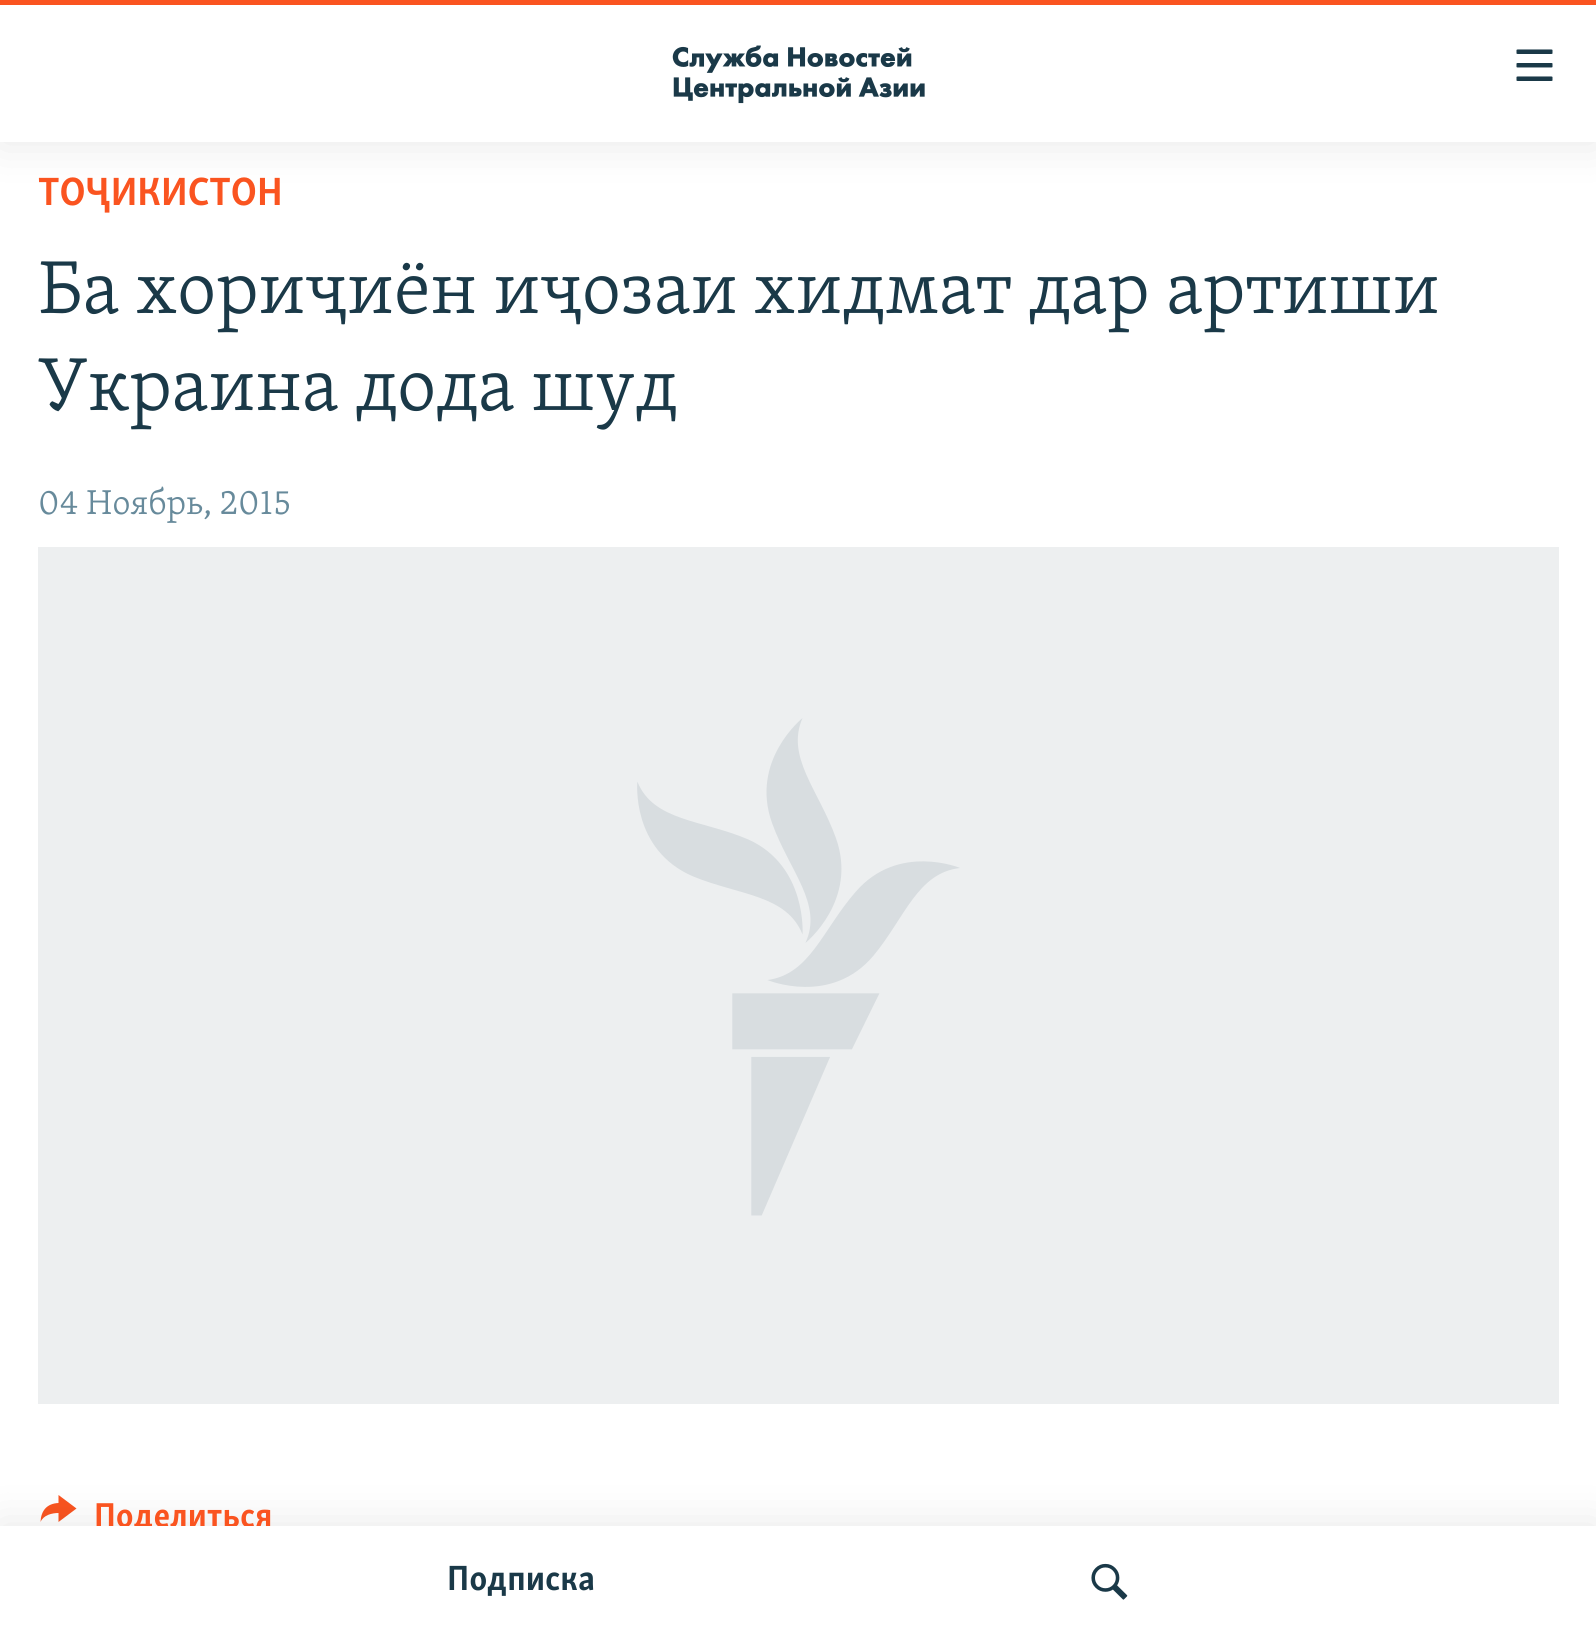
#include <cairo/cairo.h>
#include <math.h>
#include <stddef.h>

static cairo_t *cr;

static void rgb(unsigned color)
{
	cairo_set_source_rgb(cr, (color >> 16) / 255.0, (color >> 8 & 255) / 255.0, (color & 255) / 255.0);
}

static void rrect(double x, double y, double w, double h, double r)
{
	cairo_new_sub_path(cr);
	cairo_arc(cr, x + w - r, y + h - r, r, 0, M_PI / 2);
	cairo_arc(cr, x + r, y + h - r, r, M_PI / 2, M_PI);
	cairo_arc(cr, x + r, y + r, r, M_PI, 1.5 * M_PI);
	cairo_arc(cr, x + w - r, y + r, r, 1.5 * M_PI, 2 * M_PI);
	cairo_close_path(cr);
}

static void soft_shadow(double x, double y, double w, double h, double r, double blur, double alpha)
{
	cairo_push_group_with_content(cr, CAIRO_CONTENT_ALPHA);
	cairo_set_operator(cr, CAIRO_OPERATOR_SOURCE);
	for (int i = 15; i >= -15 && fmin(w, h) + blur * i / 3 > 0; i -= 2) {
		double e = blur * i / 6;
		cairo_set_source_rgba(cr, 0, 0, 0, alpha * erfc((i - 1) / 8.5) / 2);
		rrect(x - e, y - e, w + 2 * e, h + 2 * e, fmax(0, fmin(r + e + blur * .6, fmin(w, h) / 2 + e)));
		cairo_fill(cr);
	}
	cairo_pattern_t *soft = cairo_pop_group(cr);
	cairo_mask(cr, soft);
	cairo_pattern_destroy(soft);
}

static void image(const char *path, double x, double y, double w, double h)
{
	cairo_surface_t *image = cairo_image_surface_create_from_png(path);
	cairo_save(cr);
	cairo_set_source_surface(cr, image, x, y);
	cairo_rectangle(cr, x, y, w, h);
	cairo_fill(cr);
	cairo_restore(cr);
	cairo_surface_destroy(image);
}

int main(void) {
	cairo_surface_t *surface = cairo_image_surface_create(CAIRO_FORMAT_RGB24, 1596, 1637);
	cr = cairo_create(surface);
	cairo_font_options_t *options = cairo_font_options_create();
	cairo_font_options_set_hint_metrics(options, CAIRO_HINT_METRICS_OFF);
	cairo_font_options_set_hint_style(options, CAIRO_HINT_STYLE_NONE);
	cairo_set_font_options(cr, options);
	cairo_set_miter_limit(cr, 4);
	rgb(0xffffff);
	cairo_paint(cr);
	rgb(0xedeff0);
	cairo_rectangle(cr, 38, 547, 1521, 857);
	cairo_fill(cr);
	image("img/1.png", 637, 718, 323, 498);
	rgb(0xfa5420);
	cairo_new_path(cr);
	cairo_move_to(cr, 40.5, 1522);
	cairo_curve_to(cr, 41, 1510.5, 47, 1503.5, 58.5, 1503);
	cairo_line_to(cr, 58.5, 1495);
	cairo_line_to(cr, 76.5, 1508.5);
	cairo_line_to(cr, 58.5, 1522);
	cairo_line_to(cr, 58.5, 1513);
	cairo_curve_to(cr, 52, 1513, 43.5, 1515, 40.5, 1522);
	cairo_close_path(cr);
	cairo_fill(cr);
	rgb(0x000000);
	soft_shadow(0, 0, 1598, 142, 0, 22.5, 0.1);
	rgb(0xffffff);
	cairo_rectangle(cr, 0, 5, 1596, 137);
	cairo_fill(cr);
	rgb(0xfa5420);
	cairo_rectangle(cr, 0, 0, 1596, 5);
	cairo_fill(cr);
	image("img/2.png", 672, 45, 253, 59);
	image("img/3.png", 1516, 49, 37, 32);
	rgb(0x000000);
	soft_shadow(0, 1526, 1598, 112, 0, 22.5, 0.1);
	cairo_select_font_face(cr, "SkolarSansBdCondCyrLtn", CAIRO_FONT_SLANT_NORMAL, CAIRO_FONT_WEIGHT_BOLD);
	cairo_set_font_size(cr, 40.5);
	rgb(0xfa5420);
	cairo_move_to(cr, 38, 205);
	cairo_show_text(cr, "ТОҶИКИСТОН");
	cairo_select_font_face(cr, "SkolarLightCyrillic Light", CAIRO_FONT_SLANT_NORMAL, CAIRO_FONT_WEIGHT_NORMAL);
	cairo_set_font_size(cr, 77);
	rgb(0x1a3948);
	cairo_move_to(cr, 38, 313);
	cairo_show_text(cr, "Ба хориҷиён иҷозаи хидмат дар артиши");
	cairo_move_to(cr, 38, 410);
	cairo_show_text(cr, "Украина дода шуд");
	cairo_set_font_size(cr, 35.5);
	rgb(0x678a9b);
	cairo_move_to(cr, 38, 514);
	cairo_show_text(cr, "04 Ноябрь, 2015");
	cairo_select_font_face(cr, "SkolarSansBdCondCyrLtn", CAIRO_FONT_SLANT_NORMAL, CAIRO_FONT_WEIGHT_BOLD);
	rgb(0xfa5420);
	cairo_move_to(cr, 94, 1527);
	cairo_show_text(cr, "Поделиться");
	rgb(0xffffff);
	cairo_rectangle(cr, 0, 1526, 1596, 111);
	cairo_fill(cr);
	cairo_set_font_size(cr, 36);
	rgb(0x1a3948);
	cairo_move_to(cr, 447, 1590);
	cairo_show_text(cr, "Подписка");
	image("img/4.png", 1091, 1563, 37, 37);
	cairo_surface_write_to_png(surface, "page.png");
	cairo_font_options_destroy(options);
	cairo_destroy(cr);
	cairo_surface_destroy(surface);
	return 0;
}
